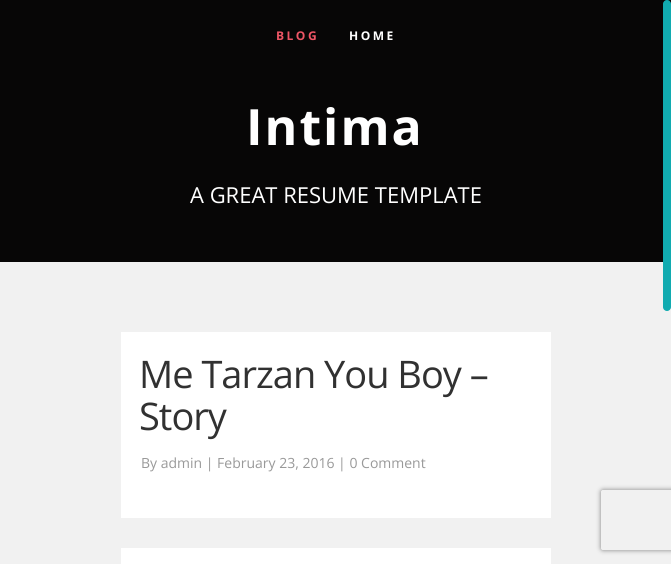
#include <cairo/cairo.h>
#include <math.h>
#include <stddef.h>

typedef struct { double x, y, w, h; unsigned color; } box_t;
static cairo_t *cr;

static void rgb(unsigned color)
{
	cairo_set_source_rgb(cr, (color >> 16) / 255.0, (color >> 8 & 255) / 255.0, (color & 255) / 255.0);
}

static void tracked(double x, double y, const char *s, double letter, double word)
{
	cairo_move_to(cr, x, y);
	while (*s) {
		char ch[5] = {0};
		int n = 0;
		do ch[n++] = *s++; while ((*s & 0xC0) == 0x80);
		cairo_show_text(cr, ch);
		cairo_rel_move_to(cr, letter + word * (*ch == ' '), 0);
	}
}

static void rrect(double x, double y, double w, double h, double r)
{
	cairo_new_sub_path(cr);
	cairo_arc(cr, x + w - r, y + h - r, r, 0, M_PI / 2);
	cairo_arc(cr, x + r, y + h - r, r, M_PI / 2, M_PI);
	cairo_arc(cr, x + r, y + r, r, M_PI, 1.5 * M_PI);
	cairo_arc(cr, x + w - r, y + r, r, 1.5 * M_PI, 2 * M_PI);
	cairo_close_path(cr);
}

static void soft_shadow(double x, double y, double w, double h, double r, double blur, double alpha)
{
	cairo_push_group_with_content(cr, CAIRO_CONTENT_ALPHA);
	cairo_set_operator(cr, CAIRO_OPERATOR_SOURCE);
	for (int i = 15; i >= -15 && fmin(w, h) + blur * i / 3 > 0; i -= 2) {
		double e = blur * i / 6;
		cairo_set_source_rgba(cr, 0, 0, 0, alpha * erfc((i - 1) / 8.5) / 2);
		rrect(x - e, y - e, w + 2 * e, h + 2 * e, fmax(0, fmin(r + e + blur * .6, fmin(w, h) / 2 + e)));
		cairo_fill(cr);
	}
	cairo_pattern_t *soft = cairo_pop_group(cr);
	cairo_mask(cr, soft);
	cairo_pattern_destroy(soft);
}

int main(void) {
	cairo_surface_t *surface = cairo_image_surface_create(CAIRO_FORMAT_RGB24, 671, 564);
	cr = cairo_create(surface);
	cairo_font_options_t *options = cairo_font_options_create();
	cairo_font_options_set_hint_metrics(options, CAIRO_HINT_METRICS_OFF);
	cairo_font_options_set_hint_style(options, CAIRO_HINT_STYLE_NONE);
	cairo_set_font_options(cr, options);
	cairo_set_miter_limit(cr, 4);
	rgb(0xf1f1f1);
	cairo_paint(cr);
	{
		static const box_t items[] = {
			{0, 0, 671, 262, 0x070606},
			{121, 332, 430, 186, 0xffffff},
			{121, 548, 430, 16, 0xffffff},
		};
		for (size_t i = 0; i < sizeof items / sizeof *items; i++) {
			rgb(items[i].color);
			cairo_rectangle(cr, items[i].x, items[i].y, items[i].w, items[i].h);
			cairo_fill(cr);
		}
	}
	rgb(0x11abb0);
	rrect(663, 0, 8, 311, 4);
	cairo_fill(cr);
	cairo_save(cr);
	cairo_set_fill_rule(cr, CAIRO_FILL_RULE_EVEN_ODD);
	cairo_new_path(cr);
	cairo_move_to(cr, 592, 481);
	cairo_line_to(cr, 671, 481);
	cairo_line_to(cr, 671, 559);
	cairo_line_to(cr, 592, 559);
	cairo_close_path(cr);
	cairo_move_to(cr, 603, 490);
	cairo_line_to(cr, 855, 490);
	cairo_curve_to(cr, 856, 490, 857, 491, 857, 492);
	cairo_line_to(cr, 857, 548);
	cairo_curve_to(cr, 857, 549, 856, 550, 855, 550);
	cairo_line_to(cr, 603, 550);
	cairo_curve_to(cr, 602, 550, 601, 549, 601, 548);
	cairo_line_to(cr, 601, 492);
	cairo_curve_to(cr, 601, 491, 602, 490, 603, 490);
	cairo_close_path(cr);
	cairo_clip(cr);
	rgb(0x808080);
	soft_shadow(601, 490, 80, 60, 2, 2.5, 1);
	cairo_restore(cr);
	cairo_select_font_face(cr, "Open Sans", CAIRO_FONT_SLANT_NORMAL, CAIRO_FONT_WEIGHT_BOLD);
	cairo_set_font_size(cr, 12);
	rgb(0xed5565);
	tracked(276, 40, "BLOG", 2.5, 0);
	rgb(0xffffff);
	tracked(349, 40, "HOME", 2.5, 0);
	cairo_set_font_size(cr, 50);
	tracked(246, 145, "Intima", 2, 0);
	cairo_select_font_face(cr, "Open Sans", CAIRO_FONT_SLANT_NORMAL, CAIRO_FONT_WEIGHT_NORMAL);
	cairo_set_font_size(cr, 22);
	cairo_move_to(cr, 190, 203);
	cairo_show_text(cr, "A GREAT RESUME TEMPLATE");
	cairo_set_font_size(cr, 38);
	rgb(0x313131);
	tracked(139, 388, "Me Tarzan You Boy –", -1, 0);
	tracked(139, 430, "Story", -1, 0);
	cairo_set_font_size(cr, 14);
	rgb(0x999999);
	cairo_move_to(cr, 141, 468);
	cairo_show_text(cr, "By admin | February 23, 2016 | 0 Comment");
	cairo_surface_write_to_png(surface, "page.png");
	cairo_font_options_destroy(options);
	cairo_destroy(cr);
	cairo_surface_destroy(surface);
	return 0;
}
